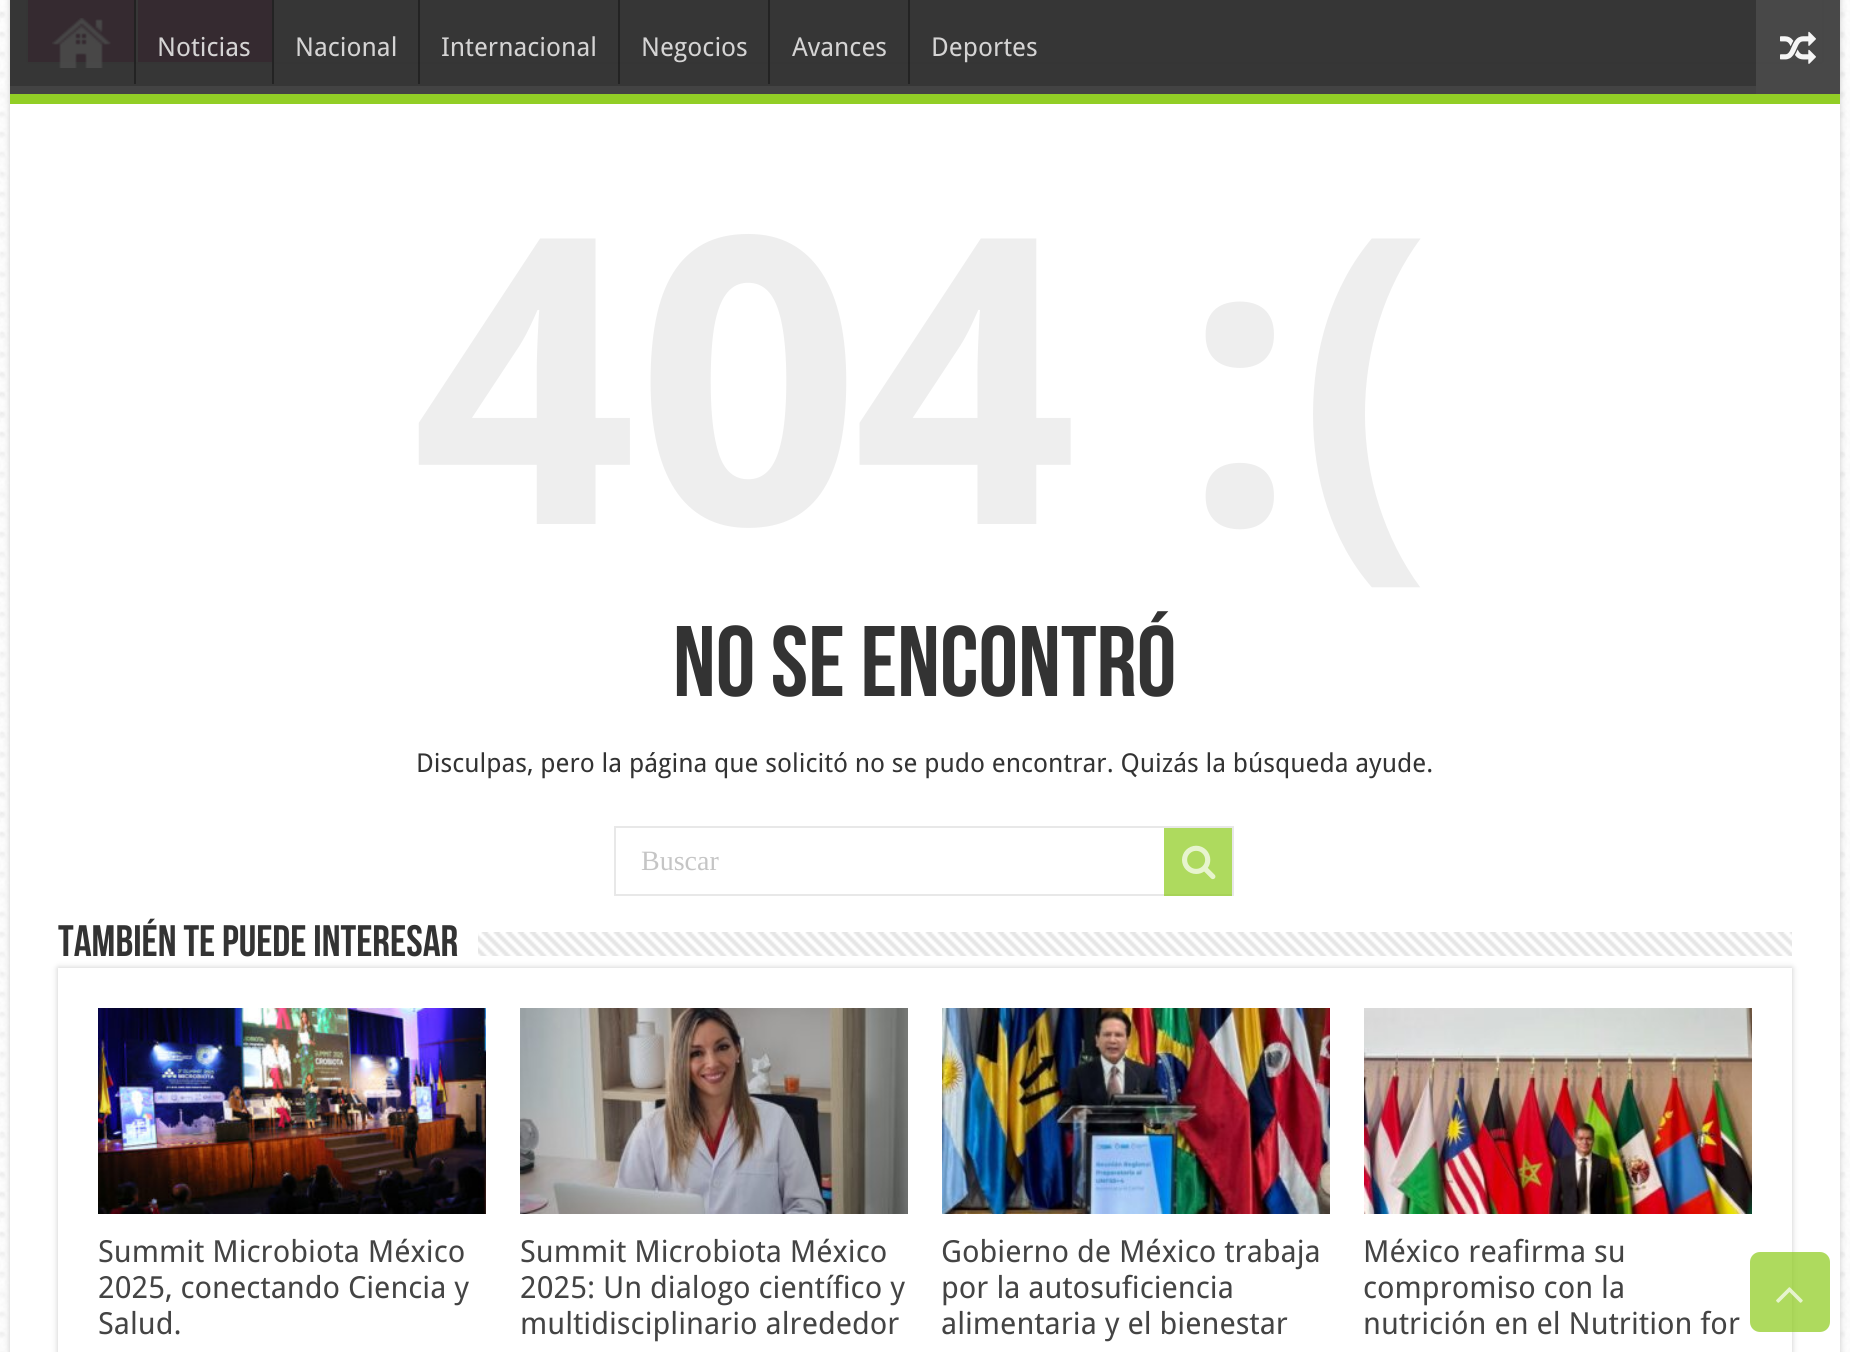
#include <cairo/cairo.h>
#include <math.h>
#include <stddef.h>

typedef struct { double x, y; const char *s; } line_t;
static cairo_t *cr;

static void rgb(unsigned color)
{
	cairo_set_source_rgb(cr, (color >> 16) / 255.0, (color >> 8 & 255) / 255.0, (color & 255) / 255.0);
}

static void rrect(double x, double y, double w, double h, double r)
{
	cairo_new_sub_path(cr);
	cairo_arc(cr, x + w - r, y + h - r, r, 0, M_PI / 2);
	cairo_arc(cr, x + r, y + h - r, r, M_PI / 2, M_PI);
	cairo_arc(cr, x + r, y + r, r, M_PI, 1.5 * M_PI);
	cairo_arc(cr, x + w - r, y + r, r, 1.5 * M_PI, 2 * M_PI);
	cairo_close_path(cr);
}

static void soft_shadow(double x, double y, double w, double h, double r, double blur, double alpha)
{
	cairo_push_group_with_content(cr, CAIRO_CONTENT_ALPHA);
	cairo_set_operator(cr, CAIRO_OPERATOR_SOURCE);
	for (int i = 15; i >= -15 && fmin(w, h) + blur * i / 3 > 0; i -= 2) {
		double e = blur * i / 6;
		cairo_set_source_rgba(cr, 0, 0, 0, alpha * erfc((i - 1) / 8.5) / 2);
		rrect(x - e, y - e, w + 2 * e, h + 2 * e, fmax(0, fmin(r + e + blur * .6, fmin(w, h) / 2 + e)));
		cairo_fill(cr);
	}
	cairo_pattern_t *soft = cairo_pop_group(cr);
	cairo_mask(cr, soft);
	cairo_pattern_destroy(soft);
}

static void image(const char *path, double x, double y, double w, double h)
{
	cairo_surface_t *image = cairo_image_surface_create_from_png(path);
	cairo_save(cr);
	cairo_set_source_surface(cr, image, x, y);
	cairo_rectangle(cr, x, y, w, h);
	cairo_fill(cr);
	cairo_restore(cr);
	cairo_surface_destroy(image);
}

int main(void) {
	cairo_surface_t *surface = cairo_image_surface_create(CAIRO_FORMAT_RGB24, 1850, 1352);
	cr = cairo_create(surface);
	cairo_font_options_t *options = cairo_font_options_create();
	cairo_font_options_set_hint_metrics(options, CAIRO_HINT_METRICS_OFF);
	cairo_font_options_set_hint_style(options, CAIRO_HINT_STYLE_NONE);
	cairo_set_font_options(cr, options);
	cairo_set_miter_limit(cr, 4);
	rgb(0xffffff);
	cairo_paint(cr);
	image("img/1.png", 0, 0, 1850, 1352);
	rgb(0xcacaca);
	soft_shadow(10, -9, 1830, 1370, 0, 3, 1);
	rgb(0xffffff);
	cairo_rectangle(cr, 10, 0, 1830, 1352);
	cairo_fill(cr);
	cairo_save(cr);
	cairo_set_fill_rule(cr, CAIRO_FILL_RULE_EVEN_ODD);
	cairo_new_path(cr);
	cairo_move_to(cr, 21, 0);
	cairo_line_to(cr, 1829, 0);
	cairo_line_to(cr, 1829, 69);
	cairo_line_to(cr, 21, 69);
	cairo_close_path(cr);
	cairo_move_to(cr, 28, -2);
	cairo_line_to(cr, 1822, -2);
	cairo_line_to(cr, 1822, 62);
	cairo_line_to(cr, 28, 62);
	cairo_close_path(cr);
	cairo_clip(cr);
	rgb(0xcacaca);
	soft_shadow(28, -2, 1794, 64, 0, 2, 1);
	cairo_restore(cr);
	rgb(0xf3047c);
	cairo_rectangle(cr, 28, 0, 244, 62);
	cairo_fill(cr);
	cairo_set_source_rgba(cr, 0.176, 0.176, 0.176, 0.95);
	cairo_rectangle(cr, 10, 0, 1830, 86);
	cairo_fill(cr);
	cairo_save(cr);
	cairo_rectangle(cr, 10, 0, 1830, 94);
	cairo_clip(cr);
	rgb(0x434343);
	cairo_set_fill_rule(cr, CAIRO_FILL_RULE_EVEN_ODD);
	cairo_new_path(cr);
	cairo_move_to(cr, -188, -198);
	cairo_line_to(cr, 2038, -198);
	cairo_line_to(cr, 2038, 292);
	cairo_line_to(cr, -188, 292);
	cairo_close_path(cr);
	cairo_move_to(cr, 8, -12);
	cairo_line_to(cr, 1838, -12);
	cairo_curve_to(cr, 1839, -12, 1840, -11, 1840, -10);
	cairo_line_to(cr, 1840, 84);
	cairo_curve_to(cr, 1840, 85, 1839, 86, 1838, 86);
	cairo_line_to(cr, 8, 86);
	cairo_curve_to(cr, 7, 86, 6, 85, 6, 84);
	cairo_line_to(cr, 6, -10);
	cairo_curve_to(cr, 6, -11, 7, -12, 8, -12);
	cairo_close_path(cr);
	cairo_fill(cr);
	cairo_restore(cr);
	rgb(0x92ce26);
	cairo_rectangle(cr, 10, 94, 1830, 10);
	cairo_fill(cr);
	image("img/2.png", 52, 18, 59, 50);
	cairo_set_source_rgba(cr, 0.133, 0.133, 0.133, 0.95);
	cairo_rectangle(cr, 134, 0, 2, 84);
	cairo_fill(cr);
	cairo_set_source_rgba(cr, 0.22, 0.22, 0.22, 0.95);
	cairo_rectangle(cr, 136, 0, 2, 62);
	cairo_fill(cr);
	rgb(0x232323);
	cairo_rectangle(cr, 272, 0, 2, 84);
	cairo_fill(cr);
	cairo_set_source_rgba(cr, 0.133, 0.133, 0.133, 0.95);
	cairo_rectangle(cr, 418, 0, 2, 84);
	cairo_fill(cr);
	cairo_rectangle(cr, 618, 0, 2, 84);
	cairo_fill(cr);
	rgb(0x232323);
	cairo_rectangle(cr, 768, 0, 2, 84);
	cairo_fill(cr);
	cairo_set_source_rgba(cr, 0.133, 0.133, 0.133, 0.95);
	cairo_rectangle(cr, 908, 0, 2, 84);
	cairo_fill(cr);
	cairo_set_source_rgba(cr, 0.286, 0.286, 0.286, 0.95);
	cairo_rectangle(cr, 1756, 0, 84, 94);
	cairo_fill(cr);
	image("img/3.png", 1780, 31, 36, 33);
	cairo_rectangle(cr, 615, 827, 618, 68);
	rgb(0xe8e8e8);
	cairo_stroke(cr);
	cairo_set_source_rgba(cr, 0.549, 0.796, 0.106, 0.7);
	cairo_rectangle(cr, 1164, 828, 68, 68);
	cairo_fill(cr);
	image("img/4.png", 1182, 845, 34, 35);
	image("img/5.png", 478, 932, 1314, 24);
	cairo_save(cr);
	cairo_set_fill_rule(cr, CAIRO_FILL_RULE_EVEN_ODD);
	cairo_new_path(cr);
	cairo_move_to(cr, 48, 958);
	cairo_line_to(cr, 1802, 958);
	cairo_line_to(cr, 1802, 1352);
	cairo_line_to(cr, 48, 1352);
	cairo_close_path(cr);
	cairo_move_to(cr, 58, 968);
	cairo_line_to(cr, 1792, 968);
	cairo_line_to(cr, 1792, 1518);
	cairo_line_to(cr, 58, 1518);
	cairo_close_path(cr);
	cairo_clip(cr);
	rgb(0xcacaca);
	soft_shadow(58, 968, 1734, 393, 0, 3, 1);
	cairo_restore(cr);
	image("img/6.png", 98, 1008, 388, 206);
	image("img/7.png", 520, 1008, 388, 206);
	image("img/8.png", 942, 1008, 388, 206);
	image("img/9.png", 1364, 1008, 388, 206);
	rrect(1750, 1252, 80, 80, 10);
	cairo_fill(cr);
	image("img/10.png", 1776, 1287, 27, 16);
	cairo_select_font_face(cr, "Droid Sans", CAIRO_FONT_SLANT_NORMAL, CAIRO_FONT_WEIGHT_NORMAL);
	cairo_set_font_size(cr, 26);
	rgb(0xd5d4d4);
	{
		static const line_t items[] = {
			{157, 56, "Noticias"},
			{295, 56, "Nacional"},
			{441, 56, "Internacional"},
			{641, 56, "Negocios"},
			{792, 56, "Avances"},
			{931, 56, "Deportes"},
		};
		for (size_t i = 0; i < sizeof items / sizeof *items; i++) {
			cairo_move_to(cr, items[i].x, items[i].y);
			cairo_show_text(cr, items[i].s);
		}
	}
	cairo_select_font_face(cr, "Droid Sans", CAIRO_FONT_SLANT_NORMAL, CAIRO_FONT_WEIGHT_BOLD);
	cairo_set_font_size(cr, 400);
	rgb(0xeeeeee);
	cairo_move_to(cr, 418, 524);
	cairo_show_text(cr, "404 :(");
	cairo_select_font_face(cr, "Bebas Neue", CAIRO_FONT_SLANT_NORMAL, CAIRO_FONT_WEIGHT_BOLD);
	cairo_set_font_size(cr, 100);
	rgb(0x333333);
	cairo_move_to(cr, 673, 696);
	cairo_show_text(cr, "No se encontró");
	cairo_select_font_face(cr, "Droid Sans", CAIRO_FONT_SLANT_NORMAL, CAIRO_FONT_WEIGHT_NORMAL);
	cairo_set_font_size(cr, 26);
	cairo_move_to(cr, 416, 772);
	cairo_show_text(cr, "Disculpas, pero la página que solicitó no se pudo encontrar. Quizás la búsqueda ayude.");
	cairo_select_font_face(cr, "Liberation Serif", CAIRO_FONT_SLANT_NORMAL, CAIRO_FONT_WEIGHT_NORMAL);
	cairo_set_font_size(cr, 28);
	rgb(0xc5c5c5);
	cairo_move_to(cr, 641, 870);
	cairo_show_text(cr, "Buscar");
	cairo_select_font_face(cr, "Bebas Neue", CAIRO_FONT_SLANT_NORMAL, CAIRO_FONT_WEIGHT_BOLD);
	cairo_set_font_size(cr, 44);
	rgb(0x333333);
	cairo_move_to(cr, 58, 956);
	cairo_show_text(cr, "También te puede interesar");
	cairo_select_font_face(cr, "Droid Sans", CAIRO_FONT_SLANT_NORMAL, CAIRO_FONT_WEIGHT_NORMAL);
	cairo_set_font_size(cr, 30.4);
	rgb(0x444444);
	{
		static const line_t items[] = {
			{98, 1262, "Summit Microbiota México"},
			{98, 1298, "2025, conectando Ciencia y"},
			{98, 1334, "Salud."},
			{520, 1262, "Summit Microbiota México"},
			{520, 1298, "2025: Un dialogo científico y"},
			{520, 1334, "multidisciplinario alrededor"},
			{941, 1262, "Gobierno de México trabaja"},
			{941, 1298, "por la autosuficiencia"},
			{941, 1334, "alimentaria y el bienestar"},
			{1363, 1262, "México reafirma su"},
			{1363, 1298, "compromiso con la"},
			{1363, 1334, "nutrición en el Nutrition for"},
		};
		for (size_t i = 0; i < sizeof items / sizeof *items; i++) {
			cairo_move_to(cr, items[i].x, items[i].y);
			cairo_show_text(cr, items[i].s);
		}
	}
	cairo_surface_write_to_png(surface, "page.png");
	cairo_font_options_destroy(options);
	cairo_destroy(cr);
	cairo_surface_destroy(surface);
	return 0;
}
